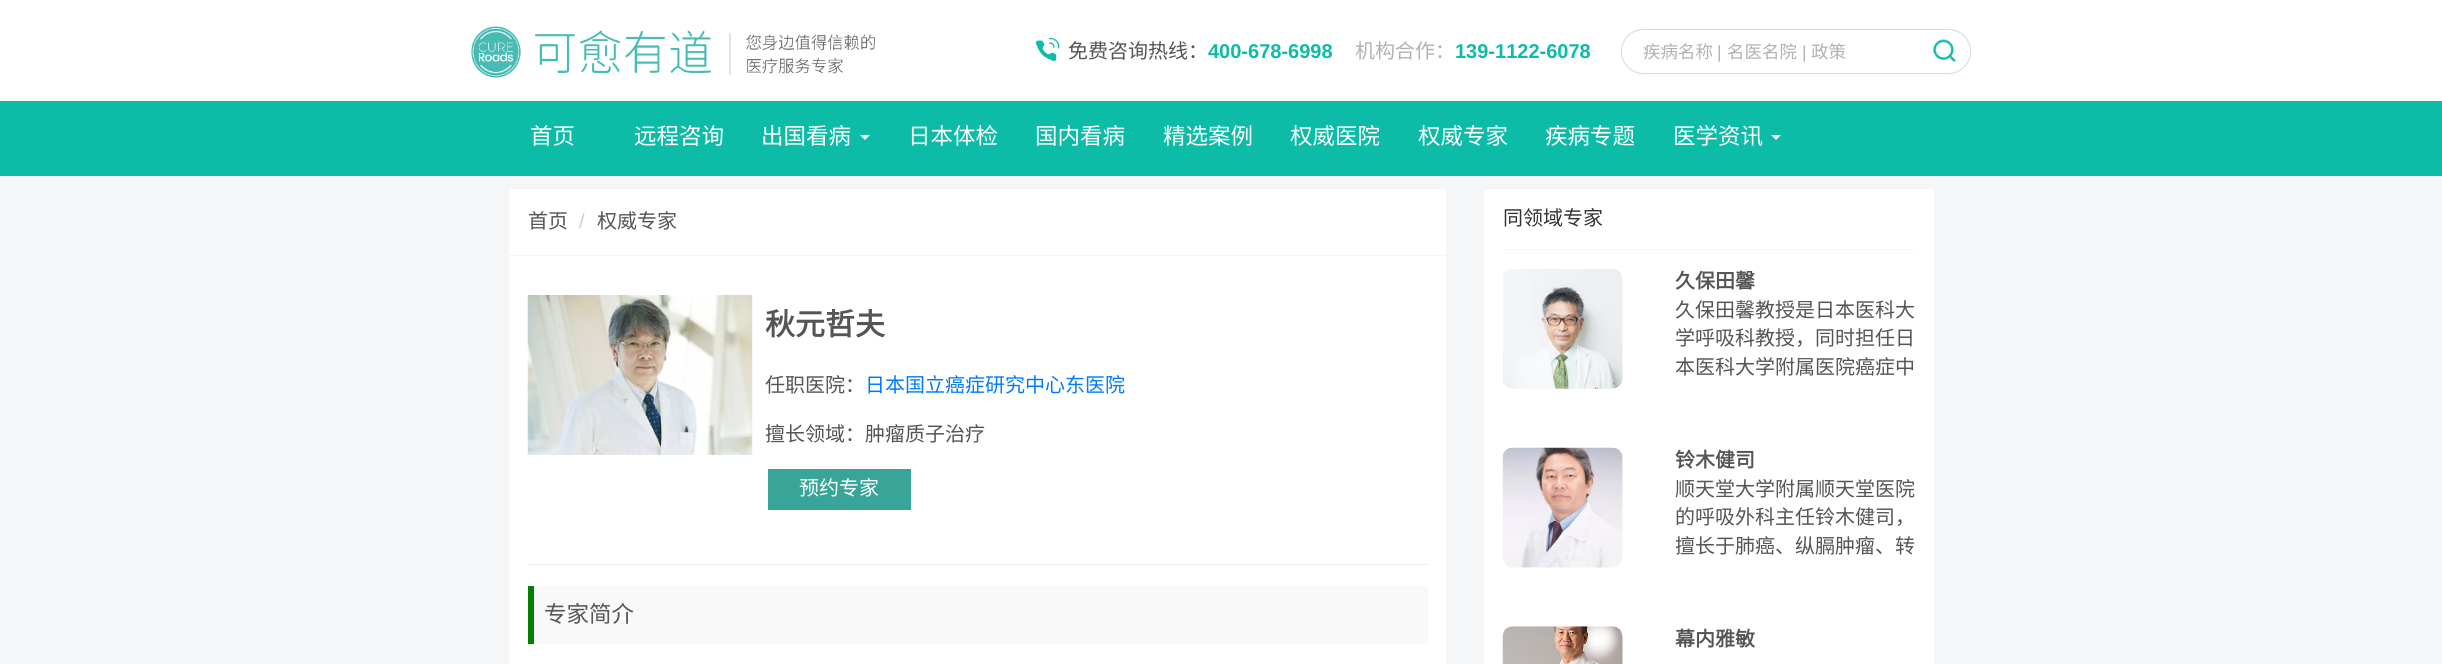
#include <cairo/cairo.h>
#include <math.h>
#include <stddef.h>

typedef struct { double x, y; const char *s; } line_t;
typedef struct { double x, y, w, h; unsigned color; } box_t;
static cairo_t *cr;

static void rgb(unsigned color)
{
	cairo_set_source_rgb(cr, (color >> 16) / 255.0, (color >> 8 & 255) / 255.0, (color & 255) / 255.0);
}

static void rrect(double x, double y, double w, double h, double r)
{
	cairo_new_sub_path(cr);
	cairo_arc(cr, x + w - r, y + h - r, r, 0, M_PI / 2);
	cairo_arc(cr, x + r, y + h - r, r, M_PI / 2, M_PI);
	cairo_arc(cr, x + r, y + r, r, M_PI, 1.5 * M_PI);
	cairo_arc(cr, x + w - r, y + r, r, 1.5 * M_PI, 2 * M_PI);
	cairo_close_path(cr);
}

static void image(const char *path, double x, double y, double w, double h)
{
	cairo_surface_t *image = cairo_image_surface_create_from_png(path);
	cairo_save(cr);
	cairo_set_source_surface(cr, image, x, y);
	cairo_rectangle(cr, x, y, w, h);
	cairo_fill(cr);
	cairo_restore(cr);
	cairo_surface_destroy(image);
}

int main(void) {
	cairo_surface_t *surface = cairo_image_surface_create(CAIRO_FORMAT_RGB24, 2442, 664);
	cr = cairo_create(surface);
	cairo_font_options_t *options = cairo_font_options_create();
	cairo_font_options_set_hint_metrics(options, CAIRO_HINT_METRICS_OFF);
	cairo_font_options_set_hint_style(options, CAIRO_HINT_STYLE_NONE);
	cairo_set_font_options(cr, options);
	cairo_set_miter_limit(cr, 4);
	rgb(0xf4f6f8);
	cairo_paint(cr);
	rgb(0xffffff);
	cairo_rectangle(cr, 0, 0, 2442, 101);
	cairo_fill(cr);
	image("img/1.png", 471, 26, 404, 52);
	image("img/2.png", 1035, 37, 25, 25);
	rrect(1621.5, 29.5, 349, 44, 22);
	rgb(0xd8d8d8);
	cairo_set_line_width(cr, 1);
	cairo_stroke(cr);
	image("img/3.png", 1933, 39, 23, 24);
	rgb(0x0dbca7);
	cairo_rectangle(cr, 0, 101, 2442, 75);
	cairo_fill(cr);
	rgb(0xffffff);
	cairo_new_path(cr);
	cairo_move_to(cr, 860, 135);
	cairo_line_to(cr, 870, 135);
	cairo_line_to(cr, 865, 140);
	cairo_close_path(cr);
	cairo_fill(cr);
	cairo_new_path(cr);
	cairo_move_to(cr, 1771, 135);
	cairo_line_to(cr, 1781, 135);
	cairo_line_to(cr, 1776, 140);
	cairo_close_path(cr);
	cairo_fill(cr);
	rrect(509, 189, 937, 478, 2.5);
	cairo_fill(cr);
	rgb(0xf5f5f5);
	cairo_rectangle(cr, 509, 255, 937, 1);
	cairo_fill(cr);
	image("img/4.png", 527, 295, 226, 160);
	{
		static const box_t items[] = {
			{768, 469, 143, 41, 0x38a598},
			{528, 564, 900, 1, 0xeeeeee},
			{534, 586, 894, 58, 0xf9f9f9},
			{528, 586, 6, 58, 0x008000},
		};
		for (size_t i = 0; i < sizeof items / sizeof *items; i++) {
			rgb(items[i].color);
			cairo_rectangle(cr, items[i].x, items[i].y, items[i].w, items[i].h);
			cairo_fill(cr);
		}
	}
	rgb(0xffffff);
	rrect(1484, 189, 450, 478, 2.5);
	cairo_fill(cr);
	rgb(0xf5f5f5);
	cairo_rectangle(cr, 1503, 249, 412, 1);
	cairo_fill(cr);
	image("img/5.png", 1503, 269, 120, 120);
	image("img/6.png", 1502, 447, 121, 121);
	image("img/7.png", 1502, 626, 121, 38);
	cairo_select_font_face(cr, "Noto Sans CJK SC", CAIRO_FONT_SLANT_NORMAL, CAIRO_FONT_WEIGHT_NORMAL);
	cairo_set_font_size(cr, 20);
	rgb(0x555555);
	cairo_move_to(cr, 1068, 58);
	cairo_show_text(cr, "免费咨询热线：");
	cairo_select_font_face(cr, "Liberation Sans", CAIRO_FONT_SLANT_NORMAL, CAIRO_FONT_WEIGHT_BOLD);
	rgb(0x0dbca7);
	cairo_move_to(cr, 1208, 58);
	cairo_show_text(cr, "400-678-6998");
	cairo_select_font_face(cr, "Noto Sans CJK SC", CAIRO_FONT_SLANT_NORMAL, CAIRO_FONT_WEIGHT_NORMAL);
	rgb(0xb2b2b2);
	cairo_move_to(cr, 1355, 58);
	cairo_show_text(cr, "机构合作：");
	cairo_select_font_face(cr, "Liberation Sans", CAIRO_FONT_SLANT_NORMAL, CAIRO_FONT_WEIGHT_BOLD);
	rgb(0x0dbca7);
	cairo_move_to(cr, 1455, 58);
	cairo_show_text(cr, "139-1122-6078");
	cairo_select_font_face(cr, "Noto Sans CJK SC", CAIRO_FONT_SLANT_NORMAL, CAIRO_FONT_WEIGHT_NORMAL);
	cairo_set_font_size(cr, 17.5);
	rgb(0xb2b2b2);
	cairo_move_to(cr, 1643, 58);
	cairo_show_text(cr, "疾病名称");
	cairo_select_font_face(cr, "Liberation Sans", CAIRO_FONT_SLANT_NORMAL, CAIRO_FONT_WEIGHT_NORMAL);
	cairo_move_to(cr, 1717, 58);
	cairo_show_text(cr, "|");
	cairo_select_font_face(cr, "Noto Sans CJK SC", CAIRO_FONT_SLANT_NORMAL, CAIRO_FONT_WEIGHT_NORMAL);
	cairo_move_to(cr, 1727, 58);
	cairo_show_text(cr, "名医名院");
	cairo_select_font_face(cr, "Liberation Sans", CAIRO_FONT_SLANT_NORMAL, CAIRO_FONT_WEIGHT_NORMAL);
	cairo_move_to(cr, 1802, 58);
	cairo_show_text(cr, "|");
	cairo_select_font_face(cr, "Noto Sans CJK SC", CAIRO_FONT_SLANT_NORMAL, CAIRO_FONT_WEIGHT_NORMAL);
	cairo_move_to(cr, 1811, 58);
	cairo_show_text(cr, "政策");
	cairo_set_font_size(cr, 22.5);
	rgb(0xffffff);
	{
		static const line_t items[] = {
			{530, 144, "首页"},
			{634, 144, "远程咨询"},
			{761, 144, "出国看病"},
			{908, 144, "日本体检"},
			{1035, 144, "国内看病"},
			{1163, 144, "精选案例"},
			{1290, 144, "权威医院"},
			{1418, 144, "权威专家"},
			{1545, 144, "疾病专题"},
			{1673, 144, "医学资讯"},
		};
		for (size_t i = 0; i < sizeof items / sizeof *items; i++) {
			cairo_move_to(cr, items[i].x, items[i].y);
			cairo_show_text(cr, items[i].s);
		}
	}
	cairo_set_font_size(cr, 20);
	rgb(0x555555);
	cairo_move_to(cr, 528, 228);
	cairo_show_text(cr, "首页");
	cairo_select_font_face(cr, "Liberation Sans", CAIRO_FONT_SLANT_NORMAL, CAIRO_FONT_WEIGHT_NORMAL);
	rgb(0xcccccc);
	cairo_move_to(cr, 579, 228);
	cairo_show_text(cr, "/");
	cairo_select_font_face(cr, "Noto Sans CJK SC", CAIRO_FONT_SLANT_NORMAL, CAIRO_FONT_WEIGHT_NORMAL);
	rgb(0x555555);
	cairo_move_to(cr, 597, 228);
	cairo_show_text(cr, "权威专家");
	cairo_select_font_face(cr, "Noto Sans CJK SC", CAIRO_FONT_SLANT_NORMAL, CAIRO_FONT_WEIGHT_BOLD);
	cairo_set_font_size(cr, 30);
	cairo_move_to(cr, 765, 335);
	cairo_show_text(cr, "秋元哲夫");
	cairo_select_font_face(cr, "Noto Sans CJK SC", CAIRO_FONT_SLANT_NORMAL, CAIRO_FONT_WEIGHT_NORMAL);
	cairo_set_font_size(cr, 20);
	cairo_move_to(cr, 765, 392);
	cairo_show_text(cr, "任职医院：");
	rgb(0x007bff);
	cairo_move_to(cr, 865, 392);
	cairo_show_text(cr, "日本国立癌症研究中心东医院");
	rgb(0x555555);
	cairo_move_to(cr, 765, 441);
	cairo_show_text(cr, "擅长领域：肿瘤质子治疗");
	rgb(0xffffff);
	cairo_move_to(cr, 799, 495);
	cairo_show_text(cr, "预约专家");
	cairo_set_font_size(cr, 22.5);
	rgb(0x555555);
	cairo_move_to(cr, 544, 622);
	cairo_show_text(cr, "专家简介");
	cairo_set_font_size(cr, 20);
	rgb(0x333333);
	cairo_move_to(cr, 1503, 225);
	cairo_show_text(cr, "同领域专家");
	cairo_select_font_face(cr, "Noto Sans CJK SC", CAIRO_FONT_SLANT_NORMAL, CAIRO_FONT_WEIGHT_BOLD);
	rgb(0x555555);
	cairo_move_to(cr, 1675, 288);
	cairo_show_text(cr, "久保田馨");
	cairo_select_font_face(cr, "Noto Sans CJK SC", CAIRO_FONT_SLANT_NORMAL, CAIRO_FONT_WEIGHT_NORMAL);
	{
		static const line_t items[] = {
			{1675, 317, "久保田馨教授是日本医科大"},
			{1675, 345, "学呼吸科教授，同时担任日"},
			{1675, 374, "本医科大学附属医院癌症中"},
		};
		for (size_t i = 0; i < sizeof items / sizeof *items; i++) {
			cairo_move_to(cr, items[i].x, items[i].y);
			cairo_show_text(cr, items[i].s);
		}
	}
	cairo_select_font_face(cr, "Noto Sans CJK SC", CAIRO_FONT_SLANT_NORMAL, CAIRO_FONT_WEIGHT_BOLD);
	cairo_move_to(cr, 1675, 467);
	cairo_show_text(cr, "铃木健司");
	cairo_select_font_face(cr, "Noto Sans CJK SC", CAIRO_FONT_SLANT_NORMAL, CAIRO_FONT_WEIGHT_NORMAL);
	{
		static const line_t items[] = {
			{1675, 496, "顺天堂大学附属顺天堂医院"},
			{1675, 524, "的呼吸外科主任铃木健司，"},
			{1675, 553, "擅长于肺癌、纵膈肿瘤、转"},
		};
		for (size_t i = 0; i < sizeof items / sizeof *items; i++) {
			cairo_move_to(cr, items[i].x, items[i].y);
			cairo_show_text(cr, items[i].s);
		}
	}
	cairo_select_font_face(cr, "Noto Sans CJK SC", CAIRO_FONT_SLANT_NORMAL, CAIRO_FONT_WEIGHT_BOLD);
	cairo_move_to(cr, 1675, 646);
	cairo_show_text(cr, "幕内雅敏");
	cairo_surface_write_to_png(surface, "page.png");
	cairo_font_options_destroy(options);
	cairo_destroy(cr);
	cairo_surface_destroy(surface);
	return 0;
}
